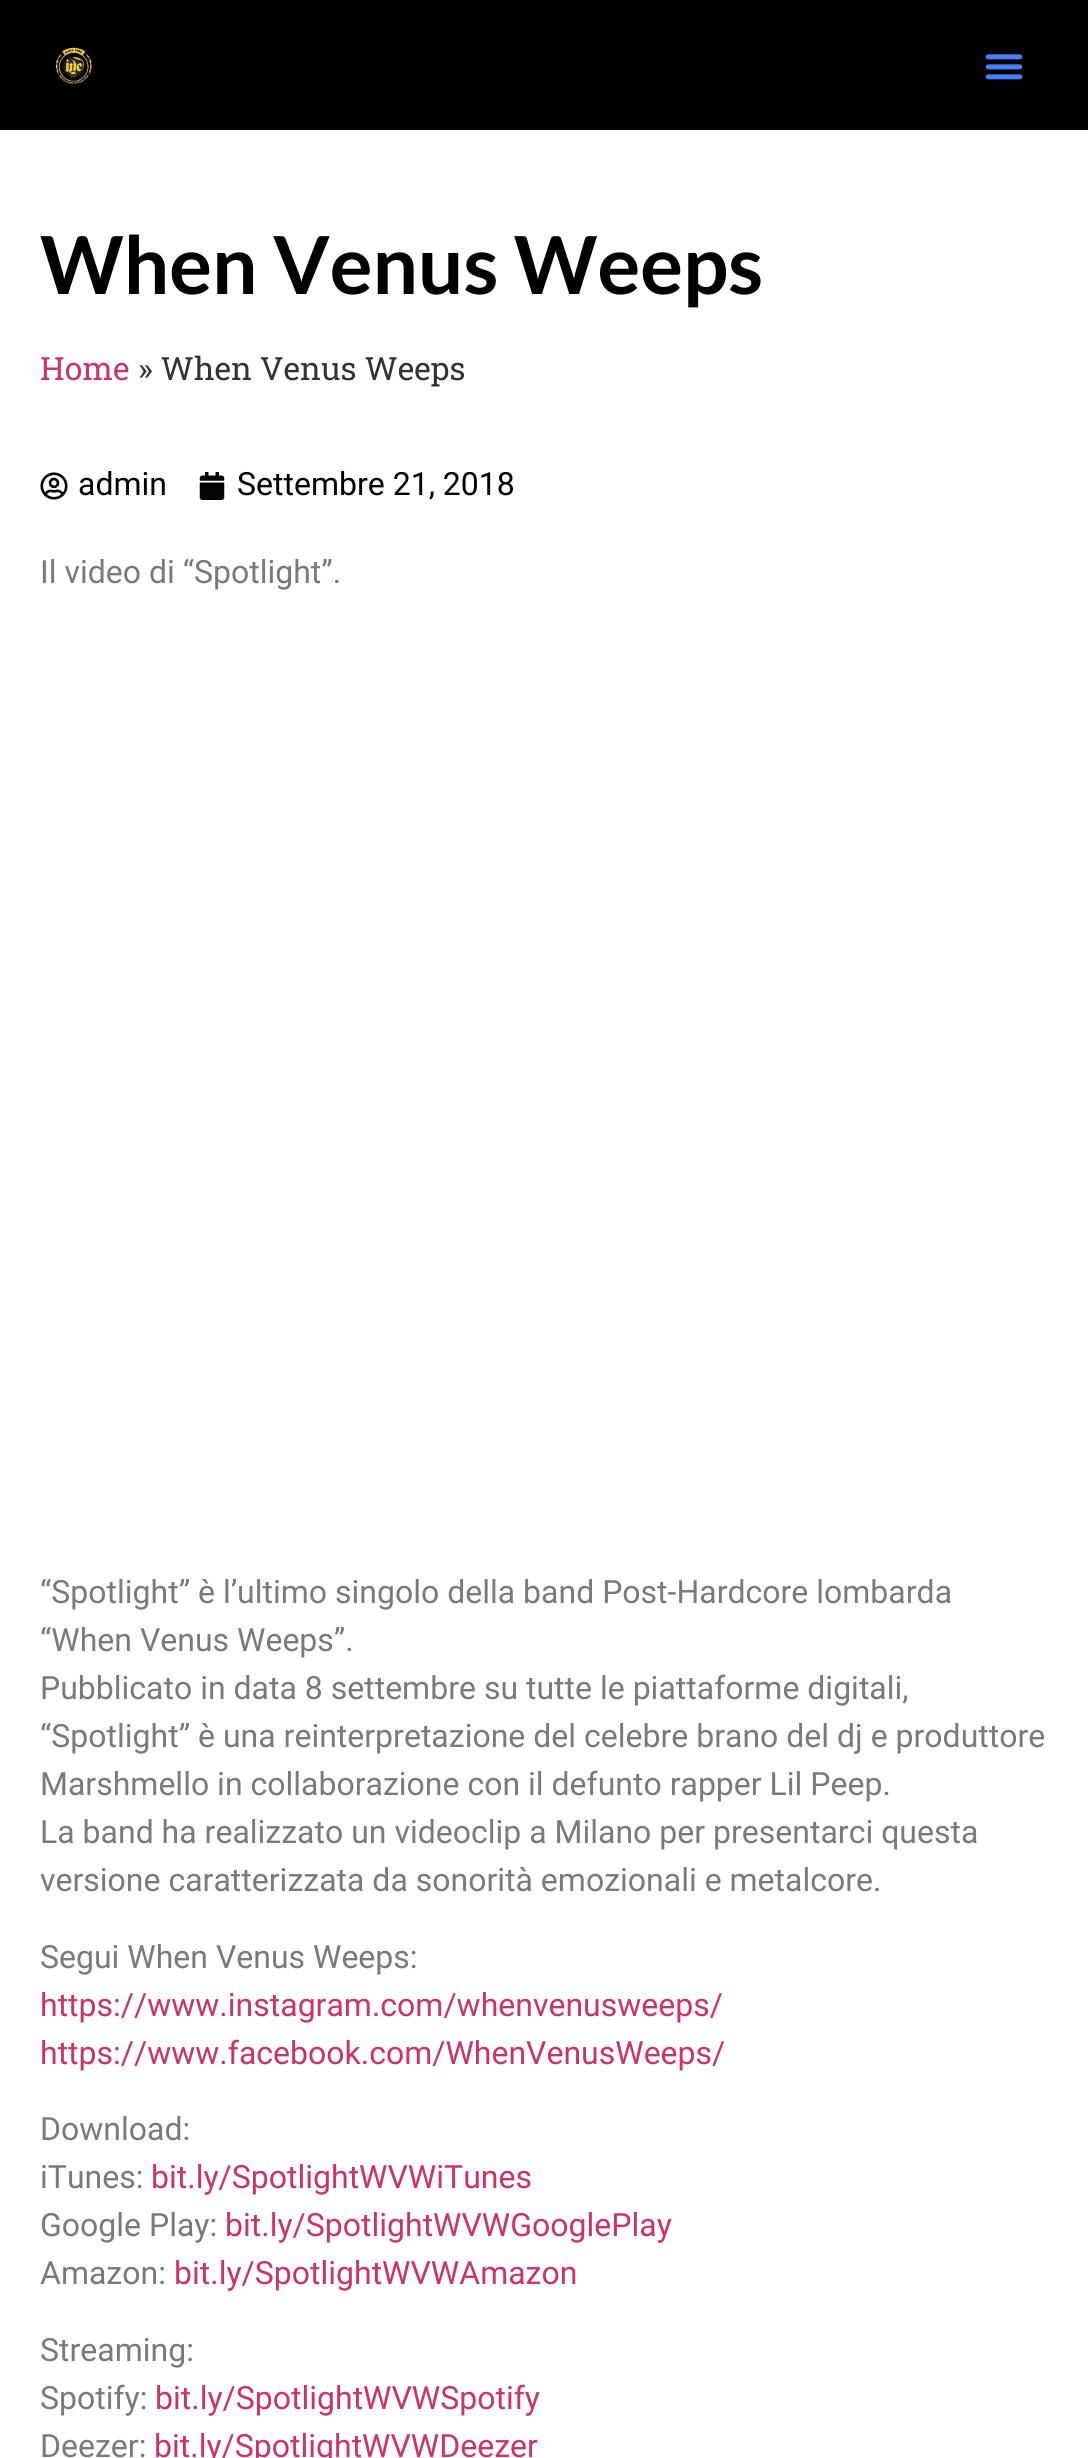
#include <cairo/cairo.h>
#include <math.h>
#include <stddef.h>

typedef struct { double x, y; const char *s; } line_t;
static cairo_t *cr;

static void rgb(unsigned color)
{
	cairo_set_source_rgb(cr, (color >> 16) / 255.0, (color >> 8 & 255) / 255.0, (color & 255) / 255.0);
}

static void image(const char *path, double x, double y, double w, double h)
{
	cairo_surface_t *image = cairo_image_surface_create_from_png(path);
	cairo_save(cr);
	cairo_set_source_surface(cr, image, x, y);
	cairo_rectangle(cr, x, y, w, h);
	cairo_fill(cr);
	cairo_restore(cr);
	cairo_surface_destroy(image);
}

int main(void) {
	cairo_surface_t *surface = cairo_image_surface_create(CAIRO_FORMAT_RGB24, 1088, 2458);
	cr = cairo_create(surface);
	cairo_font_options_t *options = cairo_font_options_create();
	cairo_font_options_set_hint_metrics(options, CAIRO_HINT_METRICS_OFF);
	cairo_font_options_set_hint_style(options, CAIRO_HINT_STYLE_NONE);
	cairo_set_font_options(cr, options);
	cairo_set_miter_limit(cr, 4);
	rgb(0xffffff);
	cairo_paint(cr);
	rgb(0x000000);
	cairo_rectangle(cr, 0, 0, 1088, 130);
	cairo_fill(cr);
	image("img/1.png", 55, 47, 37, 37);
	image("img/2.png", 985, 54, 38, 26);
	image("img/3.png", 40, 472, 28, 28);
	image("img/4.png", 199, 472, 26, 28);
	cairo_select_font_face(cr, "Lato", CAIRO_FONT_SLANT_NORMAL, CAIRO_FONT_WEIGHT_BOLD);
	cairo_set_font_size(cr, 80);
	cairo_move_to(cr, 40, 294);
	cairo_show_text(cr, "When Venus Weeps");
	cairo_select_font_face(cr, "Roboto Slab", CAIRO_FONT_SLANT_NORMAL, CAIRO_FONT_WEIGHT_NORMAL);
	cairo_set_font_size(cr, 32);
	rgb(0xcc3366);
	cairo_move_to(cr, 40, 380);
	cairo_show_text(cr, "Home");
	rgb(0x333333);
	cairo_move_to(cr, 138, 380);
	cairo_show_text(cr, "» When Venus Weeps");
	cairo_select_font_face(cr, "Roboto", CAIRO_FONT_SLANT_NORMAL, CAIRO_FONT_WEIGHT_NORMAL);
	rgb(0x000000);
	cairo_move_to(cr, 78, 495);
	cairo_show_text(cr, "admin");
	cairo_move_to(cr, 237, 495);
	cairo_show_text(cr, "Settembre 21, 2018");
	rgb(0x7a7a7a);
	{
		static const line_t items[] = {
			{40, 583, "Il video di “Spotlight”."},
			{40, 1603, "“Spotlight” è l’ultimo singolo della band Post-Hardcore lombarda"},
			{40, 1651, "“When Venus Weeps”."},
			{40, 1699, "Pubblicato in data 8 settembre su tutte le piattaforme digitali,"},
			{40, 1747, "“Spotlight” è una reinterpretazione del celebre brano del dj e produttore"},
			{40, 1795, "Marshmello in collaborazione con il defunto rapper Lil Peep."},
			{40, 1843, "La band ha realizzato un videoclip a Milano per presentarci questa"},
			{40, 1891, "versione caratterizzata da sonorità emozionali e metalcore."},
			{40, 1968, "Segui When Venus Weeps:"},
		};
		for (size_t i = 0; i < sizeof items / sizeof *items; i++) {
			cairo_move_to(cr, items[i].x, items[i].y);
			cairo_show_text(cr, items[i].s);
		}
	}
	rgb(0xcc3366);
	cairo_move_to(cr, 40, 2016);
	cairo_show_text(cr, "https://www.instagram.com/whenvenusweeps/");
	cairo_move_to(cr, 40, 2064);
	cairo_show_text(cr, "https://www.facebook.com/WhenVenusWeeps/");
	rgb(0x7a7a7a);
	cairo_move_to(cr, 40, 2140);
	cairo_show_text(cr, "Download:");
	cairo_move_to(cr, 40, 2188);
	cairo_show_text(cr, "iTunes:");
	rgb(0xcc3366);
	cairo_move_to(cr, 151, 2188);
	cairo_show_text(cr, "bit.ly/SpotlightWVWiTunes");
	rgb(0x7a7a7a);
	cairo_move_to(cr, 40, 2236);
	cairo_show_text(cr, "Google Play:");
	rgb(0xcc3366);
	cairo_move_to(cr, 225, 2236);
	cairo_show_text(cr, "bit.ly/SpotlightWVWGooglePlay");
	rgb(0x7a7a7a);
	cairo_move_to(cr, 40, 2284);
	cairo_show_text(cr, "Amazon:");
	rgb(0xcc3366);
	cairo_move_to(cr, 174, 2284);
	cairo_show_text(cr, "bit.ly/SpotlightWVWAmazon");
	rgb(0x7a7a7a);
	cairo_move_to(cr, 40, 2361);
	cairo_show_text(cr, "Streaming:");
	cairo_move_to(cr, 40, 2409);
	cairo_show_text(cr, "Spotify:");
	rgb(0xcc3366);
	cairo_move_to(cr, 155, 2409);
	cairo_show_text(cr, "bit.ly/SpotlightWVWSpotify");
	rgb(0x7a7a7a);
	cairo_move_to(cr, 40, 2457);
	cairo_show_text(cr, "Deezer:");
	rgb(0xcc3366);
	cairo_move_to(cr, 154, 2457);
	cairo_show_text(cr, "bit.ly/SpotlightWVWDeezer");
	cairo_surface_write_to_png(surface, "page.png");
	cairo_font_options_destroy(options);
	cairo_destroy(cr);
	cairo_surface_destroy(surface);
	return 0;
}
